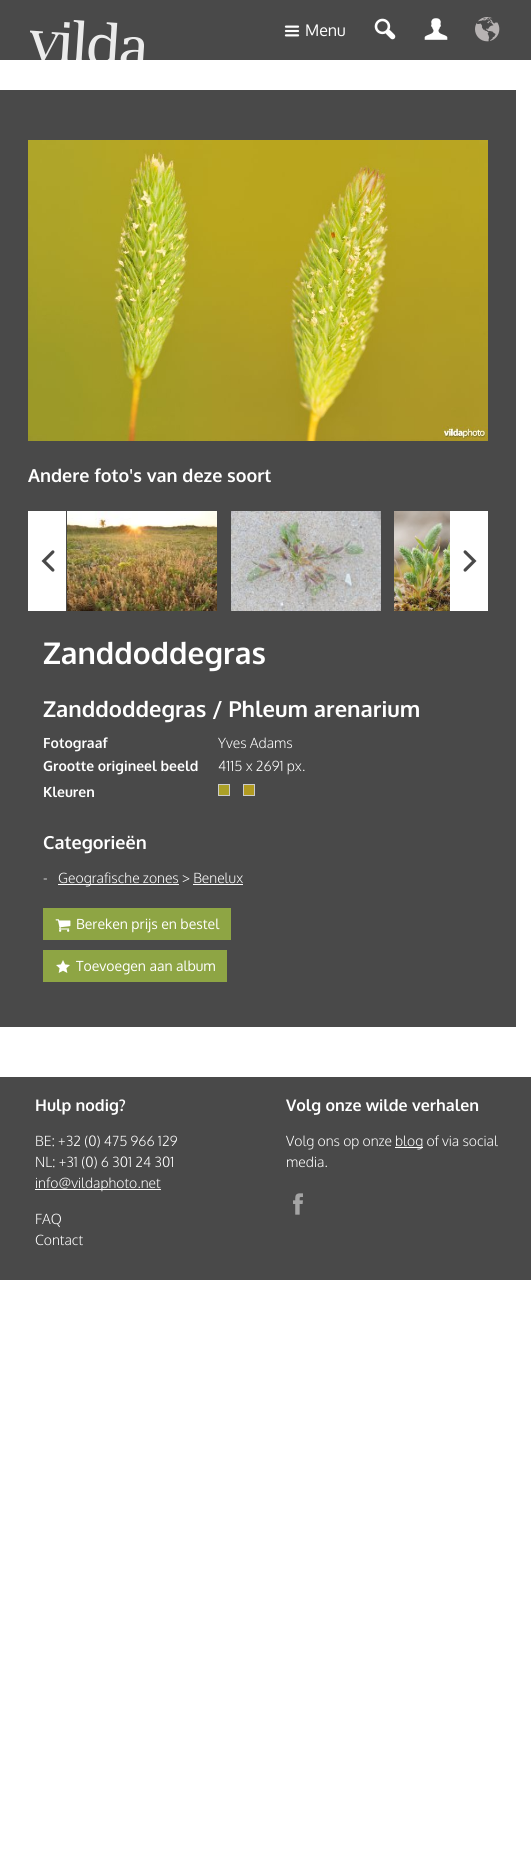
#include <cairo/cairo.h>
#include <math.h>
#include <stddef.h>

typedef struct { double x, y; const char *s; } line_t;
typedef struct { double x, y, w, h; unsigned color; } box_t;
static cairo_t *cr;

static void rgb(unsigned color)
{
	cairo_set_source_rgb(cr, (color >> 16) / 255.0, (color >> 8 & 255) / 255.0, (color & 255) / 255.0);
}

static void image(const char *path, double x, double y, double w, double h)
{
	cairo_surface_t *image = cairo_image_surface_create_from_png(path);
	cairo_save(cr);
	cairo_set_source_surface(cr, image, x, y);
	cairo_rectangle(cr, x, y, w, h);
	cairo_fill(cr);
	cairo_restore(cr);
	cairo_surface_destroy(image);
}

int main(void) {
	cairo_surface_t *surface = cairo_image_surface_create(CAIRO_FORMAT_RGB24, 531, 1870);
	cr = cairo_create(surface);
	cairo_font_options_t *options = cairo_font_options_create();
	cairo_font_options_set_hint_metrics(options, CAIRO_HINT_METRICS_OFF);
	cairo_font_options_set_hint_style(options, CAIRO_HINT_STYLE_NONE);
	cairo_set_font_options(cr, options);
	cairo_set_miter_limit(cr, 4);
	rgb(0xffffff);
	cairo_paint(cr);
	rgb(0x494949);
	cairo_rectangle(cr, 0, 0, 531, 60);
	cairo_fill(cr);
	image("img/1.png", 30, 20, 114, 40);
	image("img/2.png", 284, 25, 16, 12);
	image("img/3.png", 374, 18, 22, 22);
	image("img/4.png", 424, 18, 24, 22);
	image("img/5.png", 475, 17, 25, 25);
	cairo_rectangle(cr, 0, 90, 516, 937);
	cairo_fill(cr);
	image("img/6.png", 28, 140, 460, 301);
	rgb(0xffffff);
	cairo_rectangle(cr, 28, 511, 38, 100);
	cairo_fill(cr);
	image("img/7.png", 41, 550, 14, 22);
	cairo_rectangle(cr, 450, 511, 38, 100);
	cairo_fill(cr);
	image("img/8.png", 463, 550, 14, 22);
	image("img/9.png", 67, 511, 150, 100);
	image("img/10.png", 231, 511, 150, 100);
	image("img/11.png", 394, 511, 56, 100);
	rgb(0xaba027);
	cairo_rectangle(cr, 218.5, 784.5, 11, 11);
	cairo_fill_preserve(cr);
	rgb(0xcccccc);
	cairo_set_line_width(cr, 1);
	cairo_stroke(cr);
	rgb(0xb29b21);
	cairo_rectangle(cr, 243.5, 784.5, 11, 11);
	cairo_fill_preserve(cr);
	rgb(0xcccccc);
	cairo_stroke(cr);
	{
		static const box_t items[] = {
			{58, 884, 121, 1, 0xffffff},
			{193, 884, 50, 1, 0xffffff},
			{43, 908, 188, 32, 0x8ea544},
		};
		for (size_t i = 0; i < sizeof items / sizeof *items; i++) {
			rgb(items[i].color);
			cairo_rectangle(cr, items[i].x, items[i].y, items[i].w, items[i].h);
			cairo_fill(cr);
		}
	}
	image("img/12.png", 55, 919, 16, 13);
	cairo_rectangle(cr, 43, 950, 184, 32);
	cairo_fill(cr);
	image("img/13.png", 56, 960, 14, 13);
	{
		static const box_t items[] = {
			{0, 1077, 531, 203, 0x494949},
			{35, 1189, 126, 1, 0xffffff},
			{395, 1147, 28, 1, 0xffffff},
		};
		for (size_t i = 0; i < sizeof items / sizeof *items; i++) {
			rgb(items[i].color);
			cairo_rectangle(cr, items[i].x, items[i].y, items[i].w, items[i].h);
			cairo_fill(cr);
		}
	}
	image("img/14.png", 293, 1193, 10, 22);
	cairo_select_font_face(cr, "Oxygen", CAIRO_FONT_SLANT_NORMAL, CAIRO_FONT_WEIGHT_NORMAL);
	cairo_set_font_size(cr, 16);
	cairo_move_to(cr, 305, 36);
	cairo_show_text(cr, "Menu");
	cairo_select_font_face(cr, "Oxygen", CAIRO_FONT_SLANT_NORMAL, CAIRO_FONT_WEIGHT_BOLD);
	cairo_set_font_size(cr, 18);
	cairo_move_to(cr, 28, 482);
	cairo_show_text(cr, "Andere foto's van deze soort");
	cairo_set_font_size(cr, 30);
	cairo_move_to(cr, 43, 664);
	cairo_show_text(cr, "Zanddoddegras");
	cairo_set_font_size(cr, 22);
	cairo_move_to(cr, 43, 717);
	cairo_show_text(cr, "Zanddoddegras / Phleum arenarium");
	cairo_set_font_size(cr, 14);
	cairo_move_to(cr, 43, 748);
	cairo_show_text(cr, "Fotograaf");
	cairo_select_font_face(cr, "Oxygen Light", CAIRO_FONT_SLANT_NORMAL, CAIRO_FONT_WEIGHT_NORMAL);
	cairo_move_to(cr, 218, 748);
	cairo_show_text(cr, "Yves Adams");
	cairo_select_font_face(cr, "Oxygen", CAIRO_FONT_SLANT_NORMAL, CAIRO_FONT_WEIGHT_BOLD);
	cairo_move_to(cr, 43, 771);
	cairo_show_text(cr, "Grootte origineel beeld");
	cairo_select_font_face(cr, "Oxygen Light", CAIRO_FONT_SLANT_NORMAL, CAIRO_FONT_WEIGHT_NORMAL);
	cairo_move_to(cr, 218, 771);
	cairo_show_text(cr, "4115 x 2691 px.");
	cairo_select_font_face(cr, "Oxygen", CAIRO_FONT_SLANT_NORMAL, CAIRO_FONT_WEIGHT_BOLD);
	cairo_move_to(cr, 43, 797);
	cairo_show_text(cr, "Kleuren");
	cairo_set_font_size(cr, 18);
	cairo_move_to(cr, 43, 849);
	cairo_show_text(cr, "Categorieën");
	cairo_select_font_face(cr, "Oxygen Light", CAIRO_FONT_SLANT_NORMAL, CAIRO_FONT_WEIGHT_NORMAL);
	cairo_set_font_size(cr, 14);
	cairo_move_to(cr, 43, 883);
	cairo_show_text(cr, "-");
	cairo_move_to(cr, 58, 883);
	cairo_show_text(cr, "Geografische zones > Benelux");
	cairo_select_font_face(cr, "Oxygen", CAIRO_FONT_SLANT_NORMAL, CAIRO_FONT_WEIGHT_NORMAL);
	cairo_move_to(cr, 76, 929);
	cairo_show_text(cr, "Bereken prijs en bestel");
	cairo_move_to(cr, 76, 971);
	cairo_show_text(cr, "Toevoegen aan album");
	cairo_select_font_face(cr, "Oxygen", CAIRO_FONT_SLANT_NORMAL, CAIRO_FONT_WEIGHT_BOLD);
	cairo_set_font_size(cr, 16);
	cairo_move_to(cr, 35, 1111);
	cairo_show_text(cr, "Hulp nodig?");
	cairo_select_font_face(cr, "Oxygen Light", CAIRO_FONT_SLANT_NORMAL, CAIRO_FONT_WEIGHT_NORMAL);
	cairo_set_font_size(cr, 14);
	{
		static const line_t items[] = {
			{35, 1146, "BE: +32 (0) 475 966 129"},
			{35, 1167, "NL: +31 (0) 6 301 24 301"},
			{35, 1188, "info@vildaphoto.net"},
			{35, 1224, "FAQ"},
			{35, 1245, "Contact"},
		};
		for (size_t i = 0; i < sizeof items / sizeof *items; i++) {
			cairo_move_to(cr, items[i].x, items[i].y);
			cairo_show_text(cr, items[i].s);
		}
	}
	cairo_select_font_face(cr, "Oxygen", CAIRO_FONT_SLANT_NORMAL, CAIRO_FONT_WEIGHT_BOLD);
	cairo_set_font_size(cr, 16);
	cairo_move_to(cr, 286, 1111);
	cairo_show_text(cr, "Volg onze wilde verhalen");
	cairo_select_font_face(cr, "Oxygen Light", CAIRO_FONT_SLANT_NORMAL, CAIRO_FONT_WEIGHT_NORMAL);
	cairo_set_font_size(cr, 14);
	{
		static const line_t items[] = {
			{286, 1146, "Volg ons op onze"},
			{395, 1146, "blog of via social"},
			{286, 1167, "media."},
		};
		for (size_t i = 0; i < sizeof items / sizeof *items; i++) {
			cairo_move_to(cr, items[i].x, items[i].y);
			cairo_show_text(cr, items[i].s);
		}
	}
	cairo_surface_write_to_png(surface, "page.png");
	cairo_font_options_destroy(options);
	cairo_destroy(cr);
	cairo_surface_destroy(surface);
	return 0;
}
